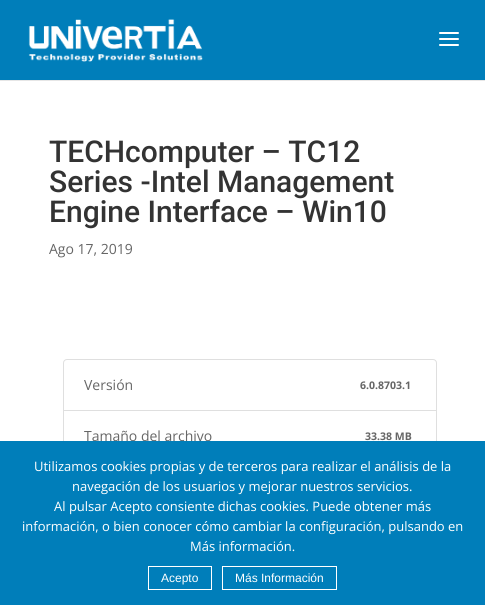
#include <cairo/cairo.h>
#include <math.h>
#include <stddef.h>

typedef struct { double x, y; const char *s; } line_t;
static cairo_t *cr;

static void rgb(unsigned color)
{
	cairo_set_source_rgb(cr, (color >> 16) / 255.0, (color >> 8 & 255) / 255.0, (color & 255) / 255.0);
}

static void image(const char *path, double x, double y, double w, double h)
{
	cairo_surface_t *image = cairo_image_surface_create_from_png(path);
	cairo_save(cr);
	cairo_set_source_surface(cr, image, x, y);
	cairo_rectangle(cr, x, y, w, h);
	cairo_fill(cr);
	cairo_restore(cr);
	cairo_surface_destroy(image);
}

int main(void) {
	cairo_surface_t *surface = cairo_image_surface_create(CAIRO_FORMAT_RGB24, 485, 605);
	cr = cairo_create(surface);
	cairo_font_options_t *options = cairo_font_options_create();
	cairo_font_options_set_hint_metrics(options, CAIRO_HINT_METRICS_OFF);
	cairo_font_options_set_hint_style(options, CAIRO_HINT_STYLE_NONE);
	cairo_set_font_options(cr, options);
	cairo_set_miter_limit(cr, 4);
	rgb(0xffffff);
	cairo_paint(cr);
	rgb(0xe6e6e6);
	cairo_rectangle(cr, 0, 80, 485, 1);
	cairo_fill(cr);
	rgb(0x007eba);
	cairo_rectangle(cr, 0, 0, 485, 80);
	cairo_fill(cr);
	image("img/1.png", 28, 19, 175, 43);
	image("img/2.png", 439, 32, 20, 14);
	cairo_new_path(cr);
	cairo_move_to(cr, 67, 359.5);
	cairo_line_to(cr, 433, 359.5);
	cairo_curve_to(cr, 435, 359.5, 436.5, 361, 436.5, 363);
	cairo_line_to(cr, 436.5, 410.5);
	cairo_line_to(cr, 63.5, 410.5);
	cairo_line_to(cr, 63.5, 363);
	cairo_curve_to(cr, 63.5, 361, 65, 359.5, 67, 359.5);
	cairo_close_path(cr);
	rgb(0xdfdfdf);
	cairo_set_line_width(cr, 1);
	cairo_stroke(cr);
	cairo_rectangle(cr, 63.5, 410.5, 373, 51);
	cairo_stroke(cr);
	cairo_select_font_face(cr, "Roboto Medium", CAIRO_FONT_SLANT_NORMAL, CAIRO_FONT_WEIGHT_NORMAL);
	cairo_set_font_size(cr, 30);
	rgb(0x333333);
	{
		static const line_t items[] = {
			{49, 162, "TECHcomputer – TC12"},
			{49, 192, "Series -Intel Management"},
			{49, 222, "Engine Interface – Win10"},
		};
		for (size_t i = 0; i < sizeof items / sizeof *items; i++) {
			cairo_move_to(cr, items[i].x, items[i].y);
			cairo_show_text(cr, items[i].s);
		}
	}
	cairo_select_font_face(cr, "Open Sans", CAIRO_FONT_SLANT_NORMAL, CAIRO_FONT_WEIGHT_NORMAL);
	cairo_set_font_size(cr, 14);
	rgb(0x666666);
	cairo_move_to(cr, 49, 254);
	cairo_show_text(cr, "Ago 17, 2019");
	cairo_move_to(cr, 84, 390);
	cairo_show_text(cr, "Versión");
	cairo_select_font_face(cr, "Open Sans", CAIRO_FONT_SLANT_NORMAL, CAIRO_FONT_WEIGHT_BOLD);
	cairo_set_font_size(cr, 10.5);
	cairo_move_to(cr, 360, 389);
	cairo_show_text(cr, "6.0.8703.1");
	cairo_select_font_face(cr, "Open Sans", CAIRO_FONT_SLANT_NORMAL, CAIRO_FONT_WEIGHT_NORMAL);
	cairo_set_font_size(cr, 14);
	cairo_move_to(cr, 84, 441);
	cairo_show_text(cr, "Tamaño del archivo");
	cairo_select_font_face(cr, "Open Sans", CAIRO_FONT_SLANT_NORMAL, CAIRO_FONT_WEIGHT_BOLD);
	cairo_set_font_size(cr, 10.5);
	cairo_move_to(cr, 365, 440);
	cairo_show_text(cr, "33.38 MB");
	rgb(0x007eba);
	cairo_rectangle(cr, 0, 441, 485, 164);
	cairo_fill(cr);
	cairo_select_font_face(cr, "Open Sans", CAIRO_FONT_SLANT_NORMAL, CAIRO_FONT_WEIGHT_NORMAL);
	cairo_set_font_size(cr, 13);
	rgb(0xffffff);
	{
		static const line_t items[] = {
			{34, 471, "Utilizamos cookies propias y de terceros para realizar el análisis de la"},
			{72, 491, "navegación de los usuarios y mejorar nuestros servicios."},
			{54, 511, "Al pulsar Acepto consiente dichas cookies. Puede obtener más"},
			{22, 531, "información, o bien conocer cómo cambiar la configuración, pulsando en"},
			{190, 551, "Más información."},
		};
		for (size_t i = 0; i < sizeof items / sizeof *items; i++) {
			cairo_move_to(cr, items[i].x, items[i].y);
			cairo_show_text(cr, items[i].s);
		}
	}
	cairo_rectangle(cr, 148.5, 566.5, 63, 23);
	cairo_stroke(cr);
	cairo_select_font_face(cr, "Liberation Sans", CAIRO_FONT_SLANT_NORMAL, CAIRO_FONT_WEIGHT_NORMAL);
	cairo_set_font_size(cr, 12);
	cairo_move_to(cr, 161, 582);
	cairo_show_text(cr, "Acepto");
	cairo_rectangle(cr, 222.5, 566.5, 114, 23);
	cairo_stroke(cr);
	cairo_move_to(cr, 235, 582);
	cairo_show_text(cr, "Más Información");
	cairo_surface_write_to_png(surface, "page.png");
	cairo_font_options_destroy(options);
	cairo_destroy(cr);
	cairo_surface_destroy(surface);
	return 0;
}
